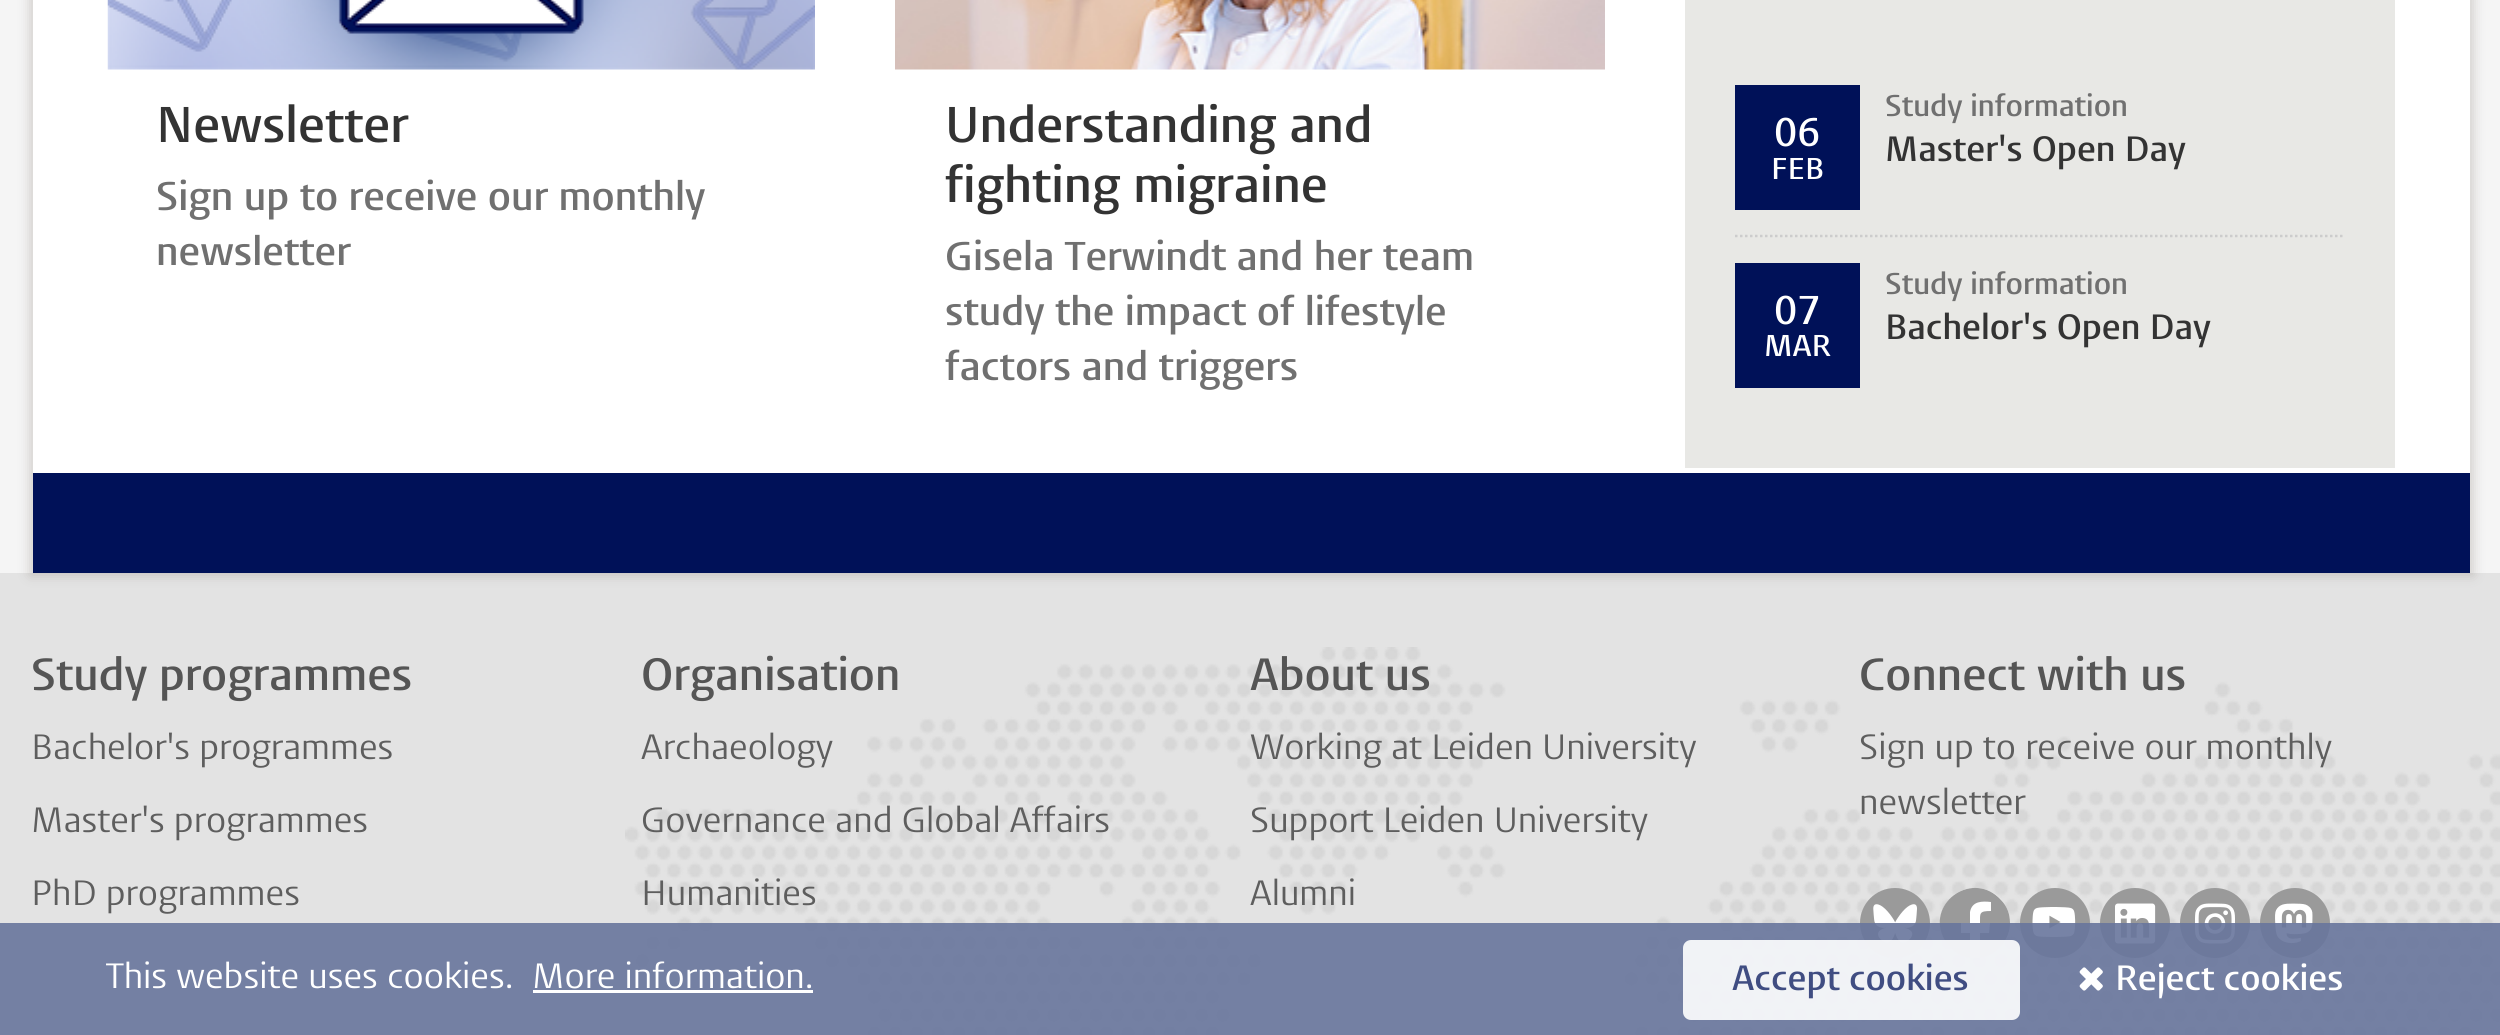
#include <cairo/cairo.h>
#include <math.h>
#include <stddef.h>

typedef struct { double x, y; const char *s; } line_t;
static cairo_t *cr;

static void rgb(unsigned color)
{
	cairo_set_source_rgb(cr, (color >> 16) / 255.0, (color >> 8 & 255) / 255.0, (color & 255) / 255.0);
}

static void rrect(double x, double y, double w, double h, double r)
{
	cairo_new_sub_path(cr);
	cairo_arc(cr, x + w - r, y + h - r, r, 0, M_PI / 2);
	cairo_arc(cr, x + r, y + h - r, r, M_PI / 2, M_PI);
	cairo_arc(cr, x + r, y + r, r, M_PI, 1.5 * M_PI);
	cairo_arc(cr, x + w - r, y + r, r, 1.5 * M_PI, 2 * M_PI);
	cairo_close_path(cr);
}

static void soft_shadow(double x, double y, double w, double h, double r, double blur, double alpha)
{
	cairo_push_group_with_content(cr, CAIRO_CONTENT_ALPHA);
	cairo_set_operator(cr, CAIRO_OPERATOR_SOURCE);
	for (int i = 15; i >= -15 && fmin(w, h) + blur * i / 3 > 0; i -= 2) {
		double e = blur * i / 6;
		cairo_set_source_rgba(cr, 0, 0, 0, alpha * erfc((i - 1) / 8.5) / 2);
		rrect(x - e, y - e, w + 2 * e, h + 2 * e, fmax(0, fmin(r + e + blur * .6, fmin(w, h) / 2 + e)));
		cairo_fill(cr);
	}
	cairo_pattern_t *soft = cairo_pop_group(cr);
	cairo_mask(cr, soft);
	cairo_pattern_destroy(soft);
}

static void image(const char *path, double x, double y, double w, double h)
{
	cairo_surface_t *image = cairo_image_surface_create_from_png(path);
	cairo_save(cr);
	cairo_set_source_surface(cr, image, x, y);
	cairo_rectangle(cr, x, y, w, h);
	cairo_fill(cr);
	cairo_restore(cr);
	cairo_surface_destroy(image);
}

int main(void) {
	cairo_surface_t *surface = cairo_image_surface_create(CAIRO_FORMAT_RGB24, 2500, 1035);
	cr = cairo_create(surface);
	cairo_font_options_t *options = cairo_font_options_create();
	cairo_font_options_set_hint_metrics(options, CAIRO_HINT_METRICS_OFF);
	cairo_font_options_set_hint_style(options, CAIRO_HINT_STYLE_NONE);
	cairo_set_font_options(cr, options);
	cairo_set_miter_limit(cr, 4);
	rgb(0xf5f5f5);
	cairo_paint(cr);
	rgb(0xe3e3e3);
	cairo_rectangle(cr, 0, 573, 2500, 462);
	cairo_fill(cr);
	rgb(0x786e64);
	soft_shadow(30, -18, 2443, 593, 0, 6, 0.3);
	rgb(0xffffff);
	cairo_rectangle(cr, 33, 0, 2437, 473);
	cairo_fill(cr);
	image("img/1.png", 107, 0, 708, 70);
	image("img/2.png", 895, 0, 710, 70);
	rgb(0xe8e8e5);
	cairo_rectangle(cr, 1685, 0, 710, 468);
	cairo_fill(cr);
	rgb(0x001158);
	cairo_rectangle(cr, 1735, 85, 125, 125);
	cairo_fill(cr);
	cairo_new_path(cr);
	cairo_move_to(cr, 1735, 236);
	cairo_line_to(cr, 2345, 236);
	rgb(0xcccccc);
	cairo_set_line_width(cr, 2.5);
	cairo_set_dash(cr, (double[]){2.5, 2.5}, 2, 0);
	cairo_stroke(cr);
	rgb(0x001158);
	cairo_rectangle(cr, 1735, 263, 125, 125);
	cairo_fill(cr);
	cairo_rectangle(cr, 33, 473, 2437, 100);
	cairo_fill(cr);
	image("img/3.png", 625, 647, 1875, 388);
	rgb(0x9a9a9a);
	cairo_arc(cr, 1895, 923, 35, 0, 2 * M_PI);
	cairo_fill(cr);
	image("img/4.png", 1873, 904, 44, 39);
	rgb(0xffffff);
	cairo_arc(cr, 1975, 923, 35, 0, 2 * M_PI);
	cairo_fill(cr);
	rgb(0x9a9a9a);
	cairo_new_path(cr);
	cairo_move_to(cr, 2010, 923);
	cairo_curve_to(cr, 2010, 914, 2007, 906, 2001, 900);
	cairo_curve_to(cr, 1974, 870, 1927, 901, 1943, 937);
	cairo_curve_to(cr, 1948, 948, 1958, 956, 1970, 958);
	cairo_line_to(cr, 1970, 933);
	cairo_line_to(cr, 1961, 933);
	cairo_line_to(cr, 1961, 923);
	cairo_line_to(cr, 1970, 923);
	cairo_line_to(cr, 1970, 912);
	cairo_curve_to(cr, 1972, 901, 1982, 901, 1991, 902);
	cairo_line_to(cr, 1991, 911);
	cairo_curve_to(cr, 1979, 911, 1980, 913, 1980, 923);
	cairo_line_to(cr, 1990, 923);
	cairo_line_to(cr, 1989, 933);
	cairo_line_to(cr, 1980, 933);
	cairo_line_to(cr, 1980, 958);
	cairo_curve_to(cr, 1997, 955, 2010, 940, 2010, 923);
	cairo_close_path(cr);
	cairo_fill(cr);
	cairo_arc(cr, 2055, 923, 35, 0, 2 * M_PI);
	cairo_fill(cr);
	image("img/5.png", 2032, 907, 44, 30);
	cairo_arc(cr, 2135, 923, 35, 0, 2 * M_PI);
	cairo_fill(cr);
	image("img/6.png", 2115, 903, 41, 41);
	cairo_arc(cr, 2215, 923, 35, 0, 2 * M_PI);
	cairo_fill(cr);
	image("img/7.png", 2195, 903, 40, 41);
	cairo_arc(cr, 2295, 923, 35, 0, 2 * M_PI);
	cairo_fill(cr);
	image("img/8.png", 2275, 903, 38, 41);
	cairo_set_source_rgba(cr, 0.408, 0.463, 0.612, 0.9);
	cairo_rectangle(cr, 0, 923, 2500, 112);
	cairo_fill(cr);
	rgb(0xffffff);
	cairo_rectangle(cr, 533, 990, 280, 3);
	cairo_fill(cr);
	cairo_set_source_rgba(cr, 1, 1, 1, 0.9);
	rrect(1683, 940, 337, 80, 8);
	cairo_fill(cr);
	image("img/9.png", 2079, 967, 24, 24);
	cairo_select_font_face(cr, "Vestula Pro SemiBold", CAIRO_FONT_SLANT_NORMAL, CAIRO_FONT_WEIGHT_NORMAL);
	cairo_set_font_size(cr, 50);
	rgb(0x333333);
	cairo_move_to(cr, 156, 142);
	cairo_show_text(cr, "Newsletter");
	cairo_set_font_size(cr, 40);
	rgb(0x707070);
	cairo_move_to(cr, 156, 210);
	cairo_show_text(cr, "Sign up to receive our monthly");
	cairo_move_to(cr, 156, 265);
	cairo_show_text(cr, "newsletter");
	cairo_set_font_size(cr, 50);
	rgb(0x333333);
	cairo_move_to(cr, 945, 142);
	cairo_show_text(cr, "Understanding and");
	cairo_move_to(cr, 945, 202);
	cairo_show_text(cr, "fighting migraine");
	cairo_set_font_size(cr, 40);
	rgb(0x707070);
	{
		static const line_t items[] = {
			{945, 270, "Gisela Terwindt and her team"},
			{945, 325, "study the impact of lifestyle"},
			{945, 380, "factors and triggers"},
		};
		for (size_t i = 0; i < sizeof items / sizeof *items; i++) {
			cairo_move_to(cr, items[i].x, items[i].y);
			cairo_show_text(cr, items[i].s);
		}
	}
	rgb(0xffffff);
	cairo_move_to(cr, 1774, 146);
	cairo_show_text(cr, "06");
	cairo_set_font_size(cr, 30);
	cairo_move_to(cr, 1771, 179);
	cairo_show_text(cr, "FEB");
	rgb(0x707070);
	cairo_move_to(cr, 1885, 116);
	cairo_show_text(cr, "Study information");
	cairo_set_font_size(cr, 35);
	rgb(0x333333);
	cairo_move_to(cr, 1885, 161);
	cairo_show_text(cr, "Master's Open Day");
	cairo_set_font_size(cr, 40);
	rgb(0xffffff);
	cairo_move_to(cr, 1774, 324);
	cairo_show_text(cr, "07");
	cairo_set_font_size(cr, 30);
	cairo_move_to(cr, 1764, 356);
	cairo_show_text(cr, "MAR");
	rgb(0x707070);
	cairo_move_to(cr, 1885, 294);
	cairo_show_text(cr, "Study information");
	cairo_set_font_size(cr, 35);
	rgb(0x333333);
	cairo_move_to(cr, 1885, 339);
	cairo_show_text(cr, "Bachelor's Open Day");
	cairo_set_font_size(cr, 45);
	rgb(0x555555);
	cairo_move_to(cr, 31, 690);
	cairo_show_text(cr, "Study programmes");
	cairo_select_font_face(cr, "Vestula Pro", CAIRO_FONT_SLANT_NORMAL, CAIRO_FONT_WEIGHT_NORMAL);
	cairo_set_font_size(cr, 35);
	rgb(0x5e5e5e);
	{
		static const line_t items[] = {
			{31, 759, "Bachelor's programmes"},
			{31, 832, "Master's programmes"},
			{31, 905, "PhD programmes"},
		};
		for (size_t i = 0; i < sizeof items / sizeof *items; i++) {
			cairo_move_to(cr, items[i].x, items[i].y);
			cairo_show_text(cr, items[i].s);
		}
	}
	cairo_select_font_face(cr, "Vestula Pro SemiBold", CAIRO_FONT_SLANT_NORMAL, CAIRO_FONT_WEIGHT_NORMAL);
	cairo_set_font_size(cr, 45);
	rgb(0x555555);
	cairo_move_to(cr, 641, 690);
	cairo_show_text(cr, "Organisation");
	cairo_select_font_face(cr, "Vestula Pro", CAIRO_FONT_SLANT_NORMAL, CAIRO_FONT_WEIGHT_NORMAL);
	cairo_set_font_size(cr, 35);
	rgb(0x5e5e5e);
	{
		static const line_t items[] = {
			{641, 759, "Archaeology"},
			{641, 832, "Governance and Global Affairs"},
			{641, 905, "Humanities"},
		};
		for (size_t i = 0; i < sizeof items / sizeof *items; i++) {
			cairo_move_to(cr, items[i].x, items[i].y);
			cairo_show_text(cr, items[i].s);
		}
	}
	cairo_select_font_face(cr, "Vestula Pro SemiBold", CAIRO_FONT_SLANT_NORMAL, CAIRO_FONT_WEIGHT_NORMAL);
	cairo_set_font_size(cr, 45);
	rgb(0x555555);
	cairo_move_to(cr, 1250, 690);
	cairo_show_text(cr, "About us");
	cairo_select_font_face(cr, "Vestula Pro", CAIRO_FONT_SLANT_NORMAL, CAIRO_FONT_WEIGHT_NORMAL);
	cairo_set_font_size(cr, 35);
	rgb(0x5e5e5e);
	{
		static const line_t items[] = {
			{1250, 759, "Working at Leiden University"},
			{1250, 832, "Support Leiden University"},
			{1250, 905, "Alumni"},
		};
		for (size_t i = 0; i < sizeof items / sizeof *items; i++) {
			cairo_move_to(cr, items[i].x, items[i].y);
			cairo_show_text(cr, items[i].s);
		}
	}
	cairo_select_font_face(cr, "Vestula Pro SemiBold", CAIRO_FONT_SLANT_NORMAL, CAIRO_FONT_WEIGHT_NORMAL);
	cairo_set_font_size(cr, 45);
	rgb(0x555555);
	cairo_move_to(cr, 1859, 690);
	cairo_show_text(cr, "Connect with us");
	cairo_select_font_face(cr, "Vestula Pro", CAIRO_FONT_SLANT_NORMAL, CAIRO_FONT_WEIGHT_NORMAL);
	cairo_set_font_size(cr, 35);
	rgb(0x5e5e5e);
	cairo_move_to(cr, 1859, 759);
	cairo_show_text(cr, "Sign up to receive our monthly");
	cairo_move_to(cr, 1859, 814);
	cairo_show_text(cr, "newsletter");
	rgb(0xffffff);
	cairo_move_to(cr, 106, 988);
	cairo_show_text(cr, "This website uses cookies.");
	cairo_move_to(cr, 532, 988);
	cairo_show_text(cr, "More information.");
	cairo_select_font_face(cr, "Vestula Pro SemiBold", CAIRO_FONT_SLANT_NORMAL, CAIRO_FONT_WEIGHT_NORMAL);
	rgb(0x404d82);
	cairo_move_to(cr, 1732, 990);
	cairo_show_text(cr, "Accept cookies");
	rgb(0xffffff);
	cairo_move_to(cr, 2115, 990);
	cairo_show_text(cr, "Reject cookies");
	cairo_surface_write_to_png(surface, "page.png");
	cairo_font_options_destroy(options);
	cairo_destroy(cr);
	cairo_surface_destroy(surface);
	return 0;
}
